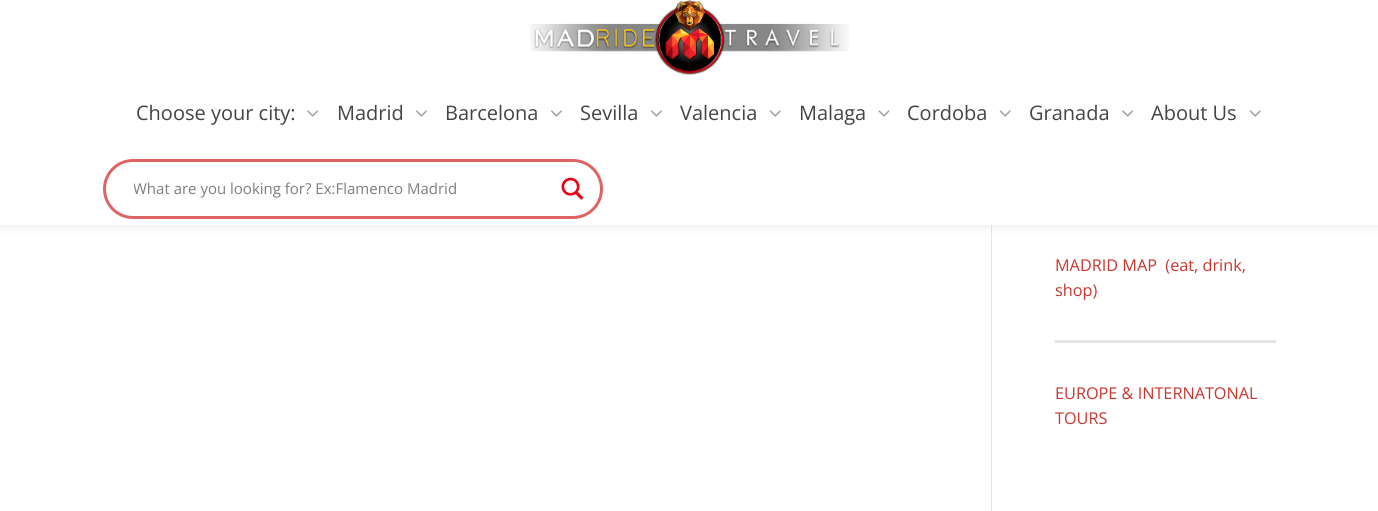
#include <cairo/cairo.h>
#include <math.h>
#include <stddef.h>

typedef struct { double x, y; const char *s; } line_t;
static cairo_t *cr;

static void rgb(unsigned color)
{
	cairo_set_source_rgb(cr, (color >> 16) / 255.0, (color >> 8 & 255) / 255.0, (color & 255) / 255.0);
}

static void rrect(double x, double y, double w, double h, double r)
{
	cairo_new_sub_path(cr);
	cairo_arc(cr, x + w - r, y + h - r, r, 0, M_PI / 2);
	cairo_arc(cr, x + r, y + h - r, r, M_PI / 2, M_PI);
	cairo_arc(cr, x + r, y + r, r, M_PI, 1.5 * M_PI);
	cairo_arc(cr, x + w - r, y + r, r, 1.5 * M_PI, 2 * M_PI);
	cairo_close_path(cr);
}

static void soft_shadow(double x, double y, double w, double h, double r, double blur, double alpha)
{
	cairo_push_group_with_content(cr, CAIRO_CONTENT_ALPHA);
	cairo_set_operator(cr, CAIRO_OPERATOR_SOURCE);
	for (int i = 15; i >= -15 && fmin(w, h) + blur * i / 3 > 0; i -= 2) {
		double e = blur * i / 6;
		cairo_set_source_rgba(cr, 0, 0, 0, alpha * erfc((i - 1) / 8.5) / 2);
		rrect(x - e, y - e, w + 2 * e, h + 2 * e, fmax(0, fmin(r + e + blur * .6, fmin(w, h) / 2 + e)));
		cairo_fill(cr);
	}
	cairo_pattern_t *soft = cairo_pop_group(cr);
	cairo_mask(cr, soft);
	cairo_pattern_destroy(soft);
}

static void image(const char *path, double x, double y, double w, double h)
{
	cairo_surface_t *image = cairo_image_surface_create_from_png(path);
	cairo_save(cr);
	cairo_set_source_surface(cr, image, x, y);
	cairo_rectangle(cr, x, y, w, h);
	cairo_fill(cr);
	cairo_restore(cr);
	cairo_surface_destroy(image);
}

int main(void) {
	cairo_surface_t *surface = cairo_image_surface_create(CAIRO_FORMAT_RGB24, 1378, 511);
	cr = cairo_create(surface);
	cairo_font_options_t *options = cairo_font_options_create();
	cairo_font_options_set_hint_metrics(options, CAIRO_HINT_METRICS_OFF);
	cairo_font_options_set_hint_style(options, CAIRO_HINT_STYLE_NONE);
	cairo_set_font_options(cr, options);
	cairo_set_miter_limit(cr, 4);
	rgb(0xffffff);
	cairo_paint(cr);
	rgb(0xe5e5e5);
	cairo_rectangle(cr, 991, 225, 1, 286);
	cairo_fill(cr);
	rgb(0x000000);
	soft_shadow(0, 0, 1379, 225, 0, 6, 0.1);
	rgb(0xffffff);
	cairo_rectangle(cr, 0, 0, 1378, 225);
	cairo_fill(cr);
	image("img/1.png", 530, 0, 319, 75);
	image("img/2.png", 307, 110, 12, 7);
	image("img/3.png", 416, 110, 11, 7);
	image("img/3.png", 551, 110, 11, 7);
	image("img/3.png", 651, 110, 11, 7);
	image("img/4.png", 769, 110, 12, 7);
	image("img/5.png", 878, 110, 12, 7);
	image("img/4.png", 999, 110, 12, 7);
	image("img/2.png", 1122, 110, 12, 7);
	image("img/4.png", 1249, 110, 12, 7);
	rrect(104.5, 160.5, 497, 57, 28.5);
	rgb(0xde6464);
	cairo_set_line_width(cr, 3);
	cairo_stroke(cr);
	image("img/6.png", 561, 177, 23, 23);
	rgb(0xe5e5e5);
	cairo_rectangle(cr, 1055, 340, 221, 3);
	cairo_fill(cr);
	cairo_select_font_face(cr, "Open Sans", CAIRO_FONT_SLANT_NORMAL, CAIRO_FONT_WEIGHT_NORMAL);
	cairo_set_font_size(cr, 20);
	rgb(0x444444);
	{
		static const line_t items[] = {
			{136, 120, "Choose your city:"},
			{337, 120, "Madrid"},
			{445, 120, "Barcelona"},
			{580, 120, "Sevilla"},
			{680, 120, "Valencia"},
			{799, 120, "Malaga"},
			{907, 120, "Cordoba"},
			{1029, 120, "Granada"},
			{1151, 120, "About Us"},
		};
		for (size_t i = 0; i < sizeof items / sizeof *items; i++) {
			cairo_move_to(cr, items[i].x, items[i].y);
			cairo_show_text(cr, items[i].s);
		}
	}
	cairo_save(cr);
	cairo_rectangle(cr, 134, 179, 415, 21);
	cairo_clip(cr);
	cairo_set_font_size(cr, 15);
	rgb(0x7d7d7d);
	cairo_move_to(cr, 133, 194);
	cairo_show_text(cr, "What are you looking for? Ex:Flamenco Madrid");
	cairo_restore(cr);
	cairo_set_font_size(cr, 16.25);
	rgb(0xc6372f);
	{
		static const line_t items[] = {
			{1055, 271, "MADRID MAP  (eat, drink,"},
			{1055, 296, "shop)"},
			{1055, 399, "EUROPE & INTERNATONAL"},
			{1055, 424, "TOURS"},
		};
		for (size_t i = 0; i < sizeof items / sizeof *items; i++) {
			cairo_move_to(cr, items[i].x, items[i].y);
			cairo_show_text(cr, items[i].s);
		}
	}
	cairo_surface_write_to_png(surface, "page.png");
	cairo_font_options_destroy(options);
	cairo_destroy(cr);
	cairo_surface_destroy(surface);
	return 0;
}
